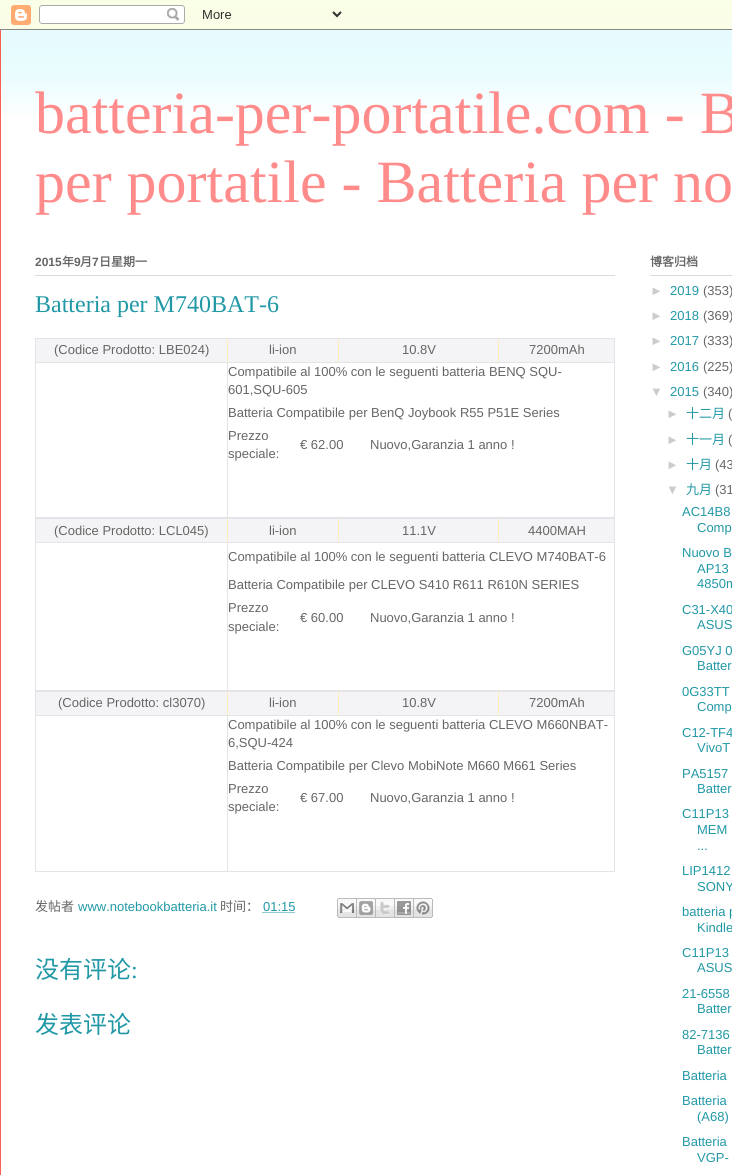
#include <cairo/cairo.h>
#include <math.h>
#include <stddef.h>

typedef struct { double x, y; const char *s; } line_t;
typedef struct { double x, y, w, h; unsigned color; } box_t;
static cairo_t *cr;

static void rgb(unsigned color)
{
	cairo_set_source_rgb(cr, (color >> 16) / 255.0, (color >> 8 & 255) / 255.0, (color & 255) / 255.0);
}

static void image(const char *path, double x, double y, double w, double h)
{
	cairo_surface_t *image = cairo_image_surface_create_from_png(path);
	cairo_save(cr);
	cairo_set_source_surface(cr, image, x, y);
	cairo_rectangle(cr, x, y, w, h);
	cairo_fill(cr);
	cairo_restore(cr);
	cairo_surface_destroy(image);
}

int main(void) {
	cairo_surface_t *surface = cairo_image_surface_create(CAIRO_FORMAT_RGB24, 732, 1175);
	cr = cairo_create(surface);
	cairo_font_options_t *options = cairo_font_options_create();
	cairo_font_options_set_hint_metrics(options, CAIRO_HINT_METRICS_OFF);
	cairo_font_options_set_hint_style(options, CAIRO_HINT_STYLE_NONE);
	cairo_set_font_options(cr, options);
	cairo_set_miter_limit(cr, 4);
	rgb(0xffffff);
	cairo_paint(cr);
	image("img/1.png", 0, 0, 732, 29);
	image("img/2.png", 0, 0, 732, 30);
	image("img/3.png", 1, 30, 731, 84);
	{
		static const box_t items[] = {
			{0, 30, 1, 1145, 0xfb5e53},
			{35, 275, 580, 1, 0xdbdbdb},
			{35, 338, 580, 534, 0xe3e3e8},
			{227, 339, 272, 23, 0xfeefba},
			{36, 339, 191, 23, 0xf4f4f6},
			{228, 339, 110, 23, 0xf4f4f6},
			{339, 339, 159, 23, 0xf4f4f6},
			{499, 339, 115, 23, 0xf4f4f6},
			{36, 363, 191, 154, 0xffffff},
			{228, 363, 386, 154, 0xffffff},
			{227, 519, 272, 23, 0xfeefba},
			{36, 519, 191, 23, 0xf4f4f6},
			{228, 519, 110, 23, 0xf4f4f6},
			{339, 519, 159, 23, 0xf4f4f6},
			{499, 519, 115, 23, 0xf4f4f6},
			{36, 543, 191, 147, 0xffffff},
			{228, 543, 386, 147, 0xffffff},
			{227, 692, 272, 23, 0xfeefba},
			{36, 692, 191, 23, 0xf4f4f6},
			{228, 692, 110, 23, 0xf4f4f6},
			{339, 692, 159, 23, 0xf4f4f6},
			{499, 692, 115, 23, 0xf4f4f6},
			{36, 716, 191, 155, 0xffffff},
			{228, 716, 386, 155, 0xffffff},
		};
		for (size_t i = 0; i < sizeof items / sizeof *items; i++) {
			rgb(items[i].color);
			cairo_rectangle(cr, items[i].x, items[i].y, items[i].w, items[i].h);
			cairo_fill(cr);
		}
	}
	cairo_new_path(cr);
	cairo_move_to(cr, 262.5, 912.5);
	cairo_line_to(cr, 295, 912.5);
	rgb(0x2198a6);
	cairo_set_line_width(cr, 1);
	cairo_set_dash(cr, (double[]){1, 1}, 2, 0);
	cairo_stroke(cr);
	image("img/4.png", 337, 898, 20, 20);
	image("img/5.png", 357, 898, 19, 20);
	image("img/6.png", 376, 898, 19, 20);
	image("img/7.png", 395, 898, 19, 20);
	image("img/8.png", 414, 898, 19, 20);
	rgb(0xdbdbdb);
	cairo_rectangle(cr, 650, 275, 82, 1);
	cairo_fill(cr);
	cairo_select_font_face(cr, "Liberation Serif", CAIRO_FONT_SLANT_NORMAL, CAIRO_FONT_WEIGHT_NORMAL);
	cairo_set_font_size(cr, 60);
	rgb(0xff8b8b);
	cairo_move_to(cr, 35, 133);
	cairo_show_text(cr, "batteria-per-portatile.com - B");
	cairo_move_to(cr, 35, 202);
	cairo_show_text(cr, "per portatile - Batteria per no");
	cairo_select_font_face(cr, "Liberation Sans", CAIRO_FONT_SLANT_NORMAL, CAIRO_FONT_WEIGHT_BOLD);
	cairo_set_font_size(cr, 12);
	rgb(0x666666);
	cairo_move_to(cr, 35, 266);
	cairo_show_text(cr, "2015");
	cairo_select_font_face(cr, "Noto Sans CJK SC", CAIRO_FONT_SLANT_NORMAL, CAIRO_FONT_WEIGHT_BOLD);
	cairo_move_to(cr, 62, 266);
	cairo_show_text(cr, "年");
	cairo_select_font_face(cr, "Liberation Sans", CAIRO_FONT_SLANT_NORMAL, CAIRO_FONT_WEIGHT_BOLD);
	cairo_move_to(cr, 74, 266);
	cairo_show_text(cr, "9");
	cairo_select_font_face(cr, "Noto Sans CJK SC", CAIRO_FONT_SLANT_NORMAL, CAIRO_FONT_WEIGHT_BOLD);
	cairo_move_to(cr, 80, 266);
	cairo_show_text(cr, "月");
	cairo_select_font_face(cr, "Liberation Sans", CAIRO_FONT_SLANT_NORMAL, CAIRO_FONT_WEIGHT_BOLD);
	cairo_move_to(cr, 92, 266);
	cairo_show_text(cr, "7");
	cairo_select_font_face(cr, "Noto Sans CJK SC", CAIRO_FONT_SLANT_NORMAL, CAIRO_FONT_WEIGHT_BOLD);
	cairo_move_to(cr, 99, 266);
	cairo_show_text(cr, "日星期一");
	cairo_select_font_face(cr, "Liberation Serif", CAIRO_FONT_SLANT_NORMAL, CAIRO_FONT_WEIGHT_NORMAL);
	cairo_set_font_size(cr, 24);
	rgb(0x2198a6);
	cairo_move_to(cr, 35, 312);
	cairo_show_text(cr, "Batteria per M740BAT-6");
	cairo_select_font_face(cr, "Liberation Sans", CAIRO_FONT_SLANT_NORMAL, CAIRO_FONT_WEIGHT_NORMAL);
	cairo_set_font_size(cr, 13);
	rgb(0x666666);
	{
		static const line_t items[] = {
			{54, 354, "(Codice Prodotto: LBE024)"},
			{269, 354, "li-ion"},
			{402, 354, "10.8V"},
			{529, 354, "7200mAh"},
			{228, 376, "Compatibile al 100% con le seguenti batteria BENQ SQU-"},
			{228, 394, "601,SQU-605"},
			{228, 417, "Batteria Compatibile per BenQ Joybook R55 P51E Series"},
			{228, 440, "Prezzo"},
			{228, 458, "speciale:"},
			{300, 449, "€ 62.00"},
			{370, 449, "Nuovo,Garanzia 1 anno !"},
			{54, 535, "(Codice Prodotto: LCL045)"},
			{269, 535, "li-ion"},
			{402, 535, "11.1V"},
			{528, 535, "4400MAH"},
			{228, 561, "Compatibile al 100% con le seguenti batteria CLEVO M740BAT-6"},
			{228, 589, "Batteria Compatibile per CLEVO S410 R611 R610N SERIES"},
			{228, 612, "Prezzo"},
			{228, 631, "speciale:"},
			{300, 622, "€ 60.00"},
			{370, 622, "Nuovo,Garanzia 1 anno !"},
			{58, 707, "(Codice Prodotto: cl3070)"},
			{269, 707, "li-ion"},
			{402, 707, "10.8V"},
			{529, 707, "7200mAh"},
			{228, 729, "Compatibile al 100% con le seguenti batteria CLEVO M660NBAT-"},
			{228, 747, "6,SQU-424"},
			{228, 770, "Batteria Compatibile per Clevo MobiNote M660 M661 Series"},
			{228, 793, "Prezzo"},
			{228, 811, "speciale:"},
			{300, 802, "€ 67.00"},
			{370, 802, "Nuovo,Garanzia 1 anno !"},
		};
		for (size_t i = 0; i < sizeof items / sizeof *items; i++) {
			cairo_move_to(cr, items[i].x, items[i].y);
			cairo_show_text(cr, items[i].s);
		}
	}
	cairo_select_font_face(cr, "Noto Sans CJK SC", CAIRO_FONT_SLANT_NORMAL, CAIRO_FONT_WEIGHT_NORMAL);
	cairo_move_to(cr, 35, 911);
	cairo_show_text(cr, "发帖者");
	cairo_select_font_face(cr, "Liberation Sans", CAIRO_FONT_SLANT_NORMAL, CAIRO_FONT_WEIGHT_NORMAL);
	rgb(0x2198a6);
	cairo_move_to(cr, 78, 911);
	cairo_show_text(cr, "www.notebookbatteria.it");
	cairo_select_font_face(cr, "Noto Sans CJK SC", CAIRO_FONT_SLANT_NORMAL, CAIRO_FONT_WEIGHT_NORMAL);
	rgb(0x666666);
	cairo_move_to(cr, 220, 911);
	cairo_show_text(cr, "时间：");
	cairo_select_font_face(cr, "Liberation Sans", CAIRO_FONT_SLANT_NORMAL, CAIRO_FONT_WEIGHT_NORMAL);
	rgb(0x2198a6);
	cairo_move_to(cr, 263, 911);
	cairo_show_text(cr, "01:15");
	cairo_select_font_face(cr, "Noto Sans CJK SC", CAIRO_FONT_SLANT_NORMAL, CAIRO_FONT_WEIGHT_NORMAL);
	cairo_set_font_size(cr, 24);
	cairo_move_to(cr, 35, 978);
	cairo_show_text(cr, "没有评论");
	cairo_select_font_face(cr, "Liberation Serif", CAIRO_FONT_SLANT_NORMAL, CAIRO_FONT_WEIGHT_NORMAL);
	cairo_move_to(cr, 131, 978);
	cairo_show_text(cr, ":");
	cairo_select_font_face(cr, "Noto Sans CJK SC", CAIRO_FONT_SLANT_NORMAL, CAIRO_FONT_WEIGHT_NORMAL);
	cairo_move_to(cr, 35, 1033);
	cairo_show_text(cr, "发表评论");
	cairo_select_font_face(cr, "Noto Sans CJK SC", CAIRO_FONT_SLANT_NORMAL, CAIRO_FONT_WEIGHT_BOLD);
	cairo_set_font_size(cr, 12);
	rgb(0x666666);
	cairo_move_to(cr, 650, 266);
	cairo_show_text(cr, "博客归档");
	cairo_select_font_face(cr, "Liberation Sans", CAIRO_FONT_SLANT_NORMAL, CAIRO_FONT_WEIGHT_NORMAL);
	cairo_set_font_size(cr, 13);
	rgb(0xcccccc);
	cairo_move_to(cr, 650, 295);
	cairo_show_text(cr, "►");
	rgb(0x2198a6);
	cairo_move_to(cr, 670, 295);
	cairo_show_text(cr, "2019");
	rgb(0x666666);
	cairo_move_to(cr, 703, 295);
	cairo_show_text(cr, "(353)");
	rgb(0xcccccc);
	cairo_move_to(cr, 650, 320);
	cairo_show_text(cr, "►");
	rgb(0x2198a6);
	cairo_move_to(cr, 670, 320);
	cairo_show_text(cr, "2018");
	rgb(0x666666);
	cairo_move_to(cr, 703, 320);
	cairo_show_text(cr, "(369)");
	rgb(0xcccccc);
	cairo_move_to(cr, 650, 345);
	cairo_show_text(cr, "►");
	rgb(0x2198a6);
	cairo_move_to(cr, 670, 345);
	cairo_show_text(cr, "2017");
	rgb(0x666666);
	cairo_move_to(cr, 703, 345);
	cairo_show_text(cr, "(333)");
	rgb(0xcccccc);
	cairo_move_to(cr, 650, 371);
	cairo_show_text(cr, "►");
	rgb(0x2198a6);
	cairo_move_to(cr, 670, 371);
	cairo_show_text(cr, "2016");
	rgb(0x666666);
	cairo_move_to(cr, 703, 371);
	cairo_show_text(cr, "(225)");
	rgb(0xcccccc);
	cairo_move_to(cr, 650, 396);
	cairo_show_text(cr, "▼");
	rgb(0x2198a6);
	cairo_move_to(cr, 670, 396);
	cairo_show_text(cr, "2015");
	rgb(0x666666);
	cairo_move_to(cr, 703, 396);
	cairo_show_text(cr, "(340)");
	rgb(0xcccccc);
	cairo_move_to(cr, 666, 418);
	cairo_show_text(cr, "►");
	cairo_select_font_face(cr, "Noto Sans CJK SC", CAIRO_FONT_SLANT_NORMAL, CAIRO_FONT_WEIGHT_NORMAL);
	rgb(0x2198a6);
	cairo_move_to(cr, 686, 418);
	cairo_show_text(cr, "十二月");
	cairo_select_font_face(cr, "Liberation Sans", CAIRO_FONT_SLANT_NORMAL, CAIRO_FONT_WEIGHT_NORMAL);
	rgb(0x666666);
	cairo_move_to(cr, 728, 418);
	cairo_show_text(cr, "(");
	rgb(0xcccccc);
	cairo_move_to(cr, 666, 444);
	cairo_show_text(cr, "►");
	cairo_select_font_face(cr, "Noto Sans CJK SC", CAIRO_FONT_SLANT_NORMAL, CAIRO_FONT_WEIGHT_NORMAL);
	rgb(0x2198a6);
	cairo_move_to(cr, 686, 444);
	cairo_show_text(cr, "十一月");
	cairo_select_font_face(cr, "Liberation Sans", CAIRO_FONT_SLANT_NORMAL, CAIRO_FONT_WEIGHT_NORMAL);
	rgb(0x666666);
	cairo_move_to(cr, 728, 444);
	cairo_show_text(cr, "(");
	rgb(0xcccccc);
	cairo_move_to(cr, 666, 469);
	cairo_show_text(cr, "►");
	cairo_select_font_face(cr, "Noto Sans CJK SC", CAIRO_FONT_SLANT_NORMAL, CAIRO_FONT_WEIGHT_NORMAL);
	rgb(0x2198a6);
	cairo_move_to(cr, 686, 469);
	cairo_show_text(cr, "十月");
	cairo_select_font_face(cr, "Liberation Sans", CAIRO_FONT_SLANT_NORMAL, CAIRO_FONT_WEIGHT_NORMAL);
	rgb(0x666666);
	cairo_move_to(cr, 715, 469);
	cairo_show_text(cr, "(43");
	rgb(0xcccccc);
	cairo_move_to(cr, 666, 494);
	cairo_show_text(cr, "▼");
	cairo_select_font_face(cr, "Noto Sans CJK SC", CAIRO_FONT_SLANT_NORMAL, CAIRO_FONT_WEIGHT_NORMAL);
	rgb(0x2198a6);
	cairo_move_to(cr, 686, 494);
	cairo_show_text(cr, "九月");
	cairo_select_font_face(cr, "Liberation Sans", CAIRO_FONT_SLANT_NORMAL, CAIRO_FONT_WEIGHT_NORMAL);
	rgb(0x666666);
	cairo_move_to(cr, 715, 494);
	cairo_show_text(cr, "(31");
	rgb(0x2198a6);
	{
		static const line_t items[] = {
			{682, 516, "AC14B8"},
			{697, 532, "Comp"},
			{682, 557, "Nuovo B"},
			{697, 573, "AP13"},
			{697, 588, "4850m"},
			{682, 614, "C31-X40"},
			{697, 629, "ASUS"},
			{682, 655, "G05YJ 0"},
			{697, 670, "Batter"},
			{682, 696, "0G33TT"},
			{697, 711, "Comp"},
			{682, 737, "C12-TF4"},
			{697, 752, "VivoT"},
			{682, 778, "PA5157"},
			{697, 793, "Batter"},
			{682, 818, "C11P13"},
			{697, 834, "MEM"},
			{697, 850, "..."},
			{682, 875, "LIP1412"},
			{697, 891, "SONY"},
			{682, 916, "batteria p"},
			{697, 932, "Kindle"},
			{682, 957, "C11P13"},
			{697, 972, "ASUS"},
			{682, 998, "21-6558"},
			{697, 1013, "Batter"},
			{682, 1039, "82-7136"},
			{697, 1054, "Batter"},
			{682, 1080, "Batteria"},
			{682, 1105, "Batteria"},
			{697, 1121, "(A68)"},
			{682, 1146, "Batteria"},
			{697, 1162, "VGP-"},
		};
		for (size_t i = 0; i < sizeof items / sizeof *items; i++) {
			cairo_move_to(cr, items[i].x, items[i].y);
			cairo_show_text(cr, items[i].s);
		}
	}
	cairo_surface_write_to_png(surface, "page.png");
	cairo_font_options_destroy(options);
	cairo_destroy(cr);
	cairo_surface_destroy(surface);
	return 0;
}
